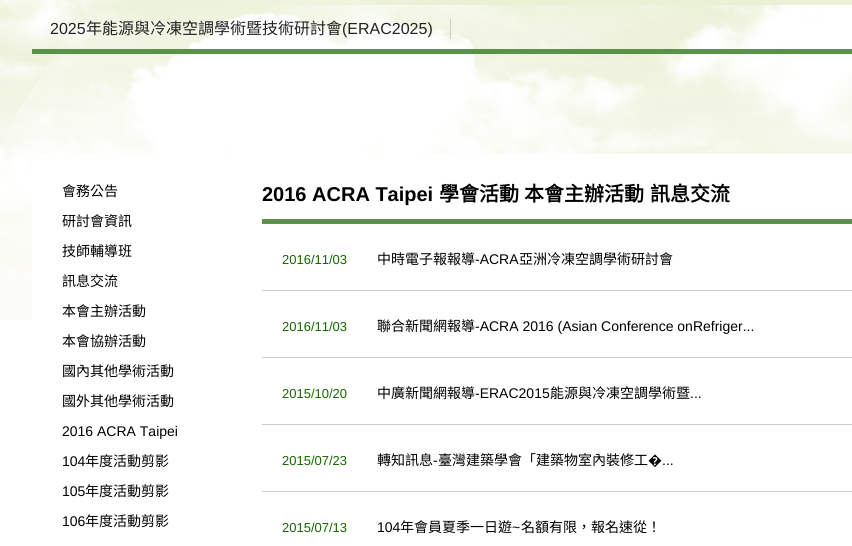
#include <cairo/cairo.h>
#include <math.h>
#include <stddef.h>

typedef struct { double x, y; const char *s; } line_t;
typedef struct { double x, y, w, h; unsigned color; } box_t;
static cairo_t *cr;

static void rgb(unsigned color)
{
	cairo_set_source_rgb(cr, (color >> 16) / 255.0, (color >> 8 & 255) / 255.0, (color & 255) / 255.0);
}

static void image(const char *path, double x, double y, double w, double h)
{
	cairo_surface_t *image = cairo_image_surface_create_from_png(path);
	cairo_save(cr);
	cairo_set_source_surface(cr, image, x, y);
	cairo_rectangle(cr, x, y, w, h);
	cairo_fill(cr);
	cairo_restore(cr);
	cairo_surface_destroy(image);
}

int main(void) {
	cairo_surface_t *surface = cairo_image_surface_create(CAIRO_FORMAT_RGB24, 852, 546);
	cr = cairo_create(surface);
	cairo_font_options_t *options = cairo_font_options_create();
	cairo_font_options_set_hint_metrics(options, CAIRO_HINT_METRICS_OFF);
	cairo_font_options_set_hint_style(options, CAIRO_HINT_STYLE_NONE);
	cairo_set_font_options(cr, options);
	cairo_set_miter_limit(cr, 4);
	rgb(0xffffff);
	cairo_paint(cr);
	image("img/1.png", 0, 0, 852, 320);
	image("img/2.png", 0, 0, 852, 320);
	{
		static const box_t items[] = {
			{450, 19, 1, 20, 0xcccccc},
			{32, 49, 820, 5, 0x5c914a},
			{32, 154, 820, 166, 0xffffff},
			{262, 219, 590, 5, 0x5c914a},
			{262, 290, 590, 1, 0xcccccc},
			{262, 357, 590, 1, 0xcccccc},
			{262, 424, 590, 1, 0xcccccc},
			{262, 491, 590, 1, 0xcccccc},
		};
		for (size_t i = 0; i < sizeof items / sizeof *items; i++) {
			rgb(items[i].color);
			cairo_rectangle(cr, items[i].x, items[i].y, items[i].w, items[i].h);
			cairo_fill(cr);
		}
	}
	cairo_select_font_face(cr, "Liberation Sans", CAIRO_FONT_SLANT_NORMAL, CAIRO_FONT_WEIGHT_NORMAL);
	cairo_set_font_size(cr, 16);
	rgb(0x222222);
	cairo_move_to(cr, 50, 34);
	cairo_show_text(cr, "2025");
	cairo_select_font_face(cr, "Noto Sans CJK TC", CAIRO_FONT_SLANT_NORMAL, CAIRO_FONT_WEIGHT_NORMAL);
	cairo_move_to(cr, 86, 34);
	cairo_show_text(cr, "年能源與冷凍空調學術暨技術研討會");
	cairo_select_font_face(cr, "Liberation Sans", CAIRO_FONT_SLANT_NORMAL, CAIRO_FONT_WEIGHT_NORMAL);
	cairo_move_to(cr, 342, 34);
	cairo_show_text(cr, "(ERAC2025)");
	cairo_select_font_face(cr, "Noto Sans CJK TC", CAIRO_FONT_SLANT_NORMAL, CAIRO_FONT_WEIGHT_NORMAL);
	cairo_set_font_size(cr, 14);
	rgb(0x000000);
	{
		static const line_t items[] = {
			{62, 196, "會務公告"},
			{62, 226, "研討會資訊"},
			{62, 256, "技師輔導班"},
			{62, 286, "訊息交流"},
			{62, 316, "本會主辦活動"},
			{62, 346, "本會協辦活動"},
			{62, 376, "國內其他學術活動"},
			{62, 406, "國外其他學術活動"},
		};
		for (size_t i = 0; i < sizeof items / sizeof *items; i++) {
			cairo_move_to(cr, items[i].x, items[i].y);
			cairo_show_text(cr, items[i].s);
		}
	}
	cairo_select_font_face(cr, "Liberation Sans", CAIRO_FONT_SLANT_NORMAL, CAIRO_FONT_WEIGHT_NORMAL);
	cairo_move_to(cr, 62, 436);
	cairo_show_text(cr, "2016 ACRA Taipei");
	cairo_move_to(cr, 62, 466);
	cairo_show_text(cr, "104");
	cairo_select_font_face(cr, "Noto Sans CJK TC", CAIRO_FONT_SLANT_NORMAL, CAIRO_FONT_WEIGHT_NORMAL);
	cairo_move_to(cr, 85, 466);
	cairo_show_text(cr, "年度活動剪影");
	cairo_select_font_face(cr, "Liberation Sans", CAIRO_FONT_SLANT_NORMAL, CAIRO_FONT_WEIGHT_NORMAL);
	cairo_move_to(cr, 62, 496);
	cairo_show_text(cr, "105");
	cairo_select_font_face(cr, "Noto Sans CJK TC", CAIRO_FONT_SLANT_NORMAL, CAIRO_FONT_WEIGHT_NORMAL);
	cairo_move_to(cr, 85, 496);
	cairo_show_text(cr, "年度活動剪影");
	cairo_select_font_face(cr, "Liberation Sans", CAIRO_FONT_SLANT_NORMAL, CAIRO_FONT_WEIGHT_NORMAL);
	cairo_move_to(cr, 62, 526);
	cairo_show_text(cr, "106");
	cairo_select_font_face(cr, "Noto Sans CJK TC", CAIRO_FONT_SLANT_NORMAL, CAIRO_FONT_WEIGHT_NORMAL);
	cairo_move_to(cr, 85, 526);
	cairo_show_text(cr, "年度活動剪影");
	cairo_select_font_face(cr, "Liberation Sans", CAIRO_FONT_SLANT_NORMAL, CAIRO_FONT_WEIGHT_BOLD);
	cairo_set_font_size(cr, 20);
	cairo_move_to(cr, 262, 201);
	cairo_show_text(cr, "2016 ACRA Taipei");
	cairo_select_font_face(cr, "Noto Sans CJK TC", CAIRO_FONT_SLANT_NORMAL, CAIRO_FONT_WEIGHT_BOLD);
	{
		static const line_t items[] = {
			{439, 201, "學會活動"},
			{524, 201, "本會主辦活動"},
			{650, 201, "訊息交流"},
		};
		for (size_t i = 0; i < sizeof items / sizeof *items; i++) {
			cairo_move_to(cr, items[i].x, items[i].y);
			cairo_show_text(cr, items[i].s);
		}
	}
	cairo_select_font_face(cr, "Liberation Sans", CAIRO_FONT_SLANT_NORMAL, CAIRO_FONT_WEIGHT_NORMAL);
	cairo_set_font_size(cr, 13);
	rgb(0x156700);
	cairo_move_to(cr, 282, 264);
	cairo_show_text(cr, "2016/11/03");
	cairo_select_font_face(cr, "Noto Sans CJK TC", CAIRO_FONT_SLANT_NORMAL, CAIRO_FONT_WEIGHT_NORMAL);
	cairo_set_font_size(cr, 14);
	rgb(0x000000);
	cairo_move_to(cr, 377, 264);
	cairo_show_text(cr, "中時電子報報導");
	cairo_select_font_face(cr, "Liberation Sans", CAIRO_FONT_SLANT_NORMAL, CAIRO_FONT_WEIGHT_NORMAL);
	cairo_move_to(cr, 475, 264);
	cairo_show_text(cr, "-ACRA");
	cairo_select_font_face(cr, "Noto Sans CJK TC", CAIRO_FONT_SLANT_NORMAL, CAIRO_FONT_WEIGHT_NORMAL);
	cairo_move_to(cr, 519, 264);
	cairo_show_text(cr, "亞洲冷凍空調學術研討會");
	cairo_select_font_face(cr, "Liberation Sans", CAIRO_FONT_SLANT_NORMAL, CAIRO_FONT_WEIGHT_NORMAL);
	cairo_set_font_size(cr, 13);
	rgb(0x156700);
	cairo_move_to(cr, 282, 331);
	cairo_show_text(cr, "2016/11/03");
	cairo_select_font_face(cr, "Noto Sans CJK TC", CAIRO_FONT_SLANT_NORMAL, CAIRO_FONT_WEIGHT_NORMAL);
	cairo_set_font_size(cr, 14);
	rgb(0x000000);
	cairo_move_to(cr, 377, 331);
	cairo_show_text(cr, "聯合新聞網報導");
	cairo_select_font_face(cr, "Liberation Sans", CAIRO_FONT_SLANT_NORMAL, CAIRO_FONT_WEIGHT_NORMAL);
	cairo_move_to(cr, 475, 331);
	cairo_show_text(cr, "-ACRA 2016 (Asian Conference onRefriger...");
	cairo_set_font_size(cr, 13);
	rgb(0x156700);
	cairo_move_to(cr, 282, 398);
	cairo_show_text(cr, "2015/10/20");
	cairo_select_font_face(cr, "Noto Sans CJK TC", CAIRO_FONT_SLANT_NORMAL, CAIRO_FONT_WEIGHT_NORMAL);
	cairo_set_font_size(cr, 14);
	rgb(0x000000);
	cairo_move_to(cr, 377, 398);
	cairo_show_text(cr, "中廣新聞網報導");
	cairo_select_font_face(cr, "Liberation Sans", CAIRO_FONT_SLANT_NORMAL, CAIRO_FONT_WEIGHT_NORMAL);
	cairo_move_to(cr, 475, 398);
	cairo_show_text(cr, "-ERAC2015");
	cairo_select_font_face(cr, "Noto Sans CJK TC", CAIRO_FONT_SLANT_NORMAL, CAIRO_FONT_WEIGHT_NORMAL);
	cairo_move_to(cr, 550, 398);
	cairo_show_text(cr, "能源與冷凍空調學術暨");
	cairo_select_font_face(cr, "Liberation Sans", CAIRO_FONT_SLANT_NORMAL, CAIRO_FONT_WEIGHT_NORMAL);
	cairo_move_to(cr, 690, 398);
	cairo_show_text(cr, "...");
	cairo_set_font_size(cr, 13);
	rgb(0x156700);
	cairo_move_to(cr, 282, 465);
	cairo_show_text(cr, "2015/07/23");
	cairo_select_font_face(cr, "Noto Sans CJK TC", CAIRO_FONT_SLANT_NORMAL, CAIRO_FONT_WEIGHT_NORMAL);
	cairo_set_font_size(cr, 14);
	rgb(0x000000);
	cairo_move_to(cr, 377, 465);
	cairo_show_text(cr, "轉知訊息");
	cairo_select_font_face(cr, "Liberation Sans", CAIRO_FONT_SLANT_NORMAL, CAIRO_FONT_WEIGHT_NORMAL);
	cairo_move_to(cr, 433, 465);
	cairo_show_text(cr, "-");
	cairo_select_font_face(cr, "Noto Sans CJK TC", CAIRO_FONT_SLANT_NORMAL, CAIRO_FONT_WEIGHT_NORMAL);
	cairo_move_to(cr, 438, 465);
	cairo_show_text(cr, "臺灣建築學會「建築物室內裝修工");
	cairo_select_font_face(cr, "Noto Sans", CAIRO_FONT_SLANT_NORMAL, CAIRO_FONT_WEIGHT_NORMAL);
	cairo_move_to(cr, 648, 465);
	cairo_show_text(cr, "�");
	cairo_select_font_face(cr, "Liberation Sans", CAIRO_FONT_SLANT_NORMAL, CAIRO_FONT_WEIGHT_NORMAL);
	cairo_move_to(cr, 662, 465);
	cairo_show_text(cr, "...");
	cairo_set_font_size(cr, 13);
	rgb(0x156700);
	cairo_move_to(cr, 282, 532);
	cairo_show_text(cr, "2015/07/13");
	cairo_set_font_size(cr, 14);
	rgb(0x000000);
	cairo_move_to(cr, 377, 532);
	cairo_show_text(cr, "104");
	cairo_select_font_face(cr, "Noto Sans CJK TC", CAIRO_FONT_SLANT_NORMAL, CAIRO_FONT_WEIGHT_NORMAL);
	cairo_move_to(cr, 400, 532);
	cairo_show_text(cr, "年會員夏季一日遊");
	cairo_select_font_face(cr, "Liberation Sans", CAIRO_FONT_SLANT_NORMAL, CAIRO_FONT_WEIGHT_NORMAL);
	cairo_move_to(cr, 512, 532);
	cairo_show_text(cr, "~");
	cairo_select_font_face(cr, "Noto Sans CJK TC", CAIRO_FONT_SLANT_NORMAL, CAIRO_FONT_WEIGHT_NORMAL);
	cairo_move_to(cr, 521, 532);
	cairo_show_text(cr, "名額有限，報名速從！");
	cairo_surface_write_to_png(surface, "page.png");
	cairo_font_options_destroy(options);
	cairo_destroy(cr);
	cairo_surface_destroy(surface);
	return 0;
}
